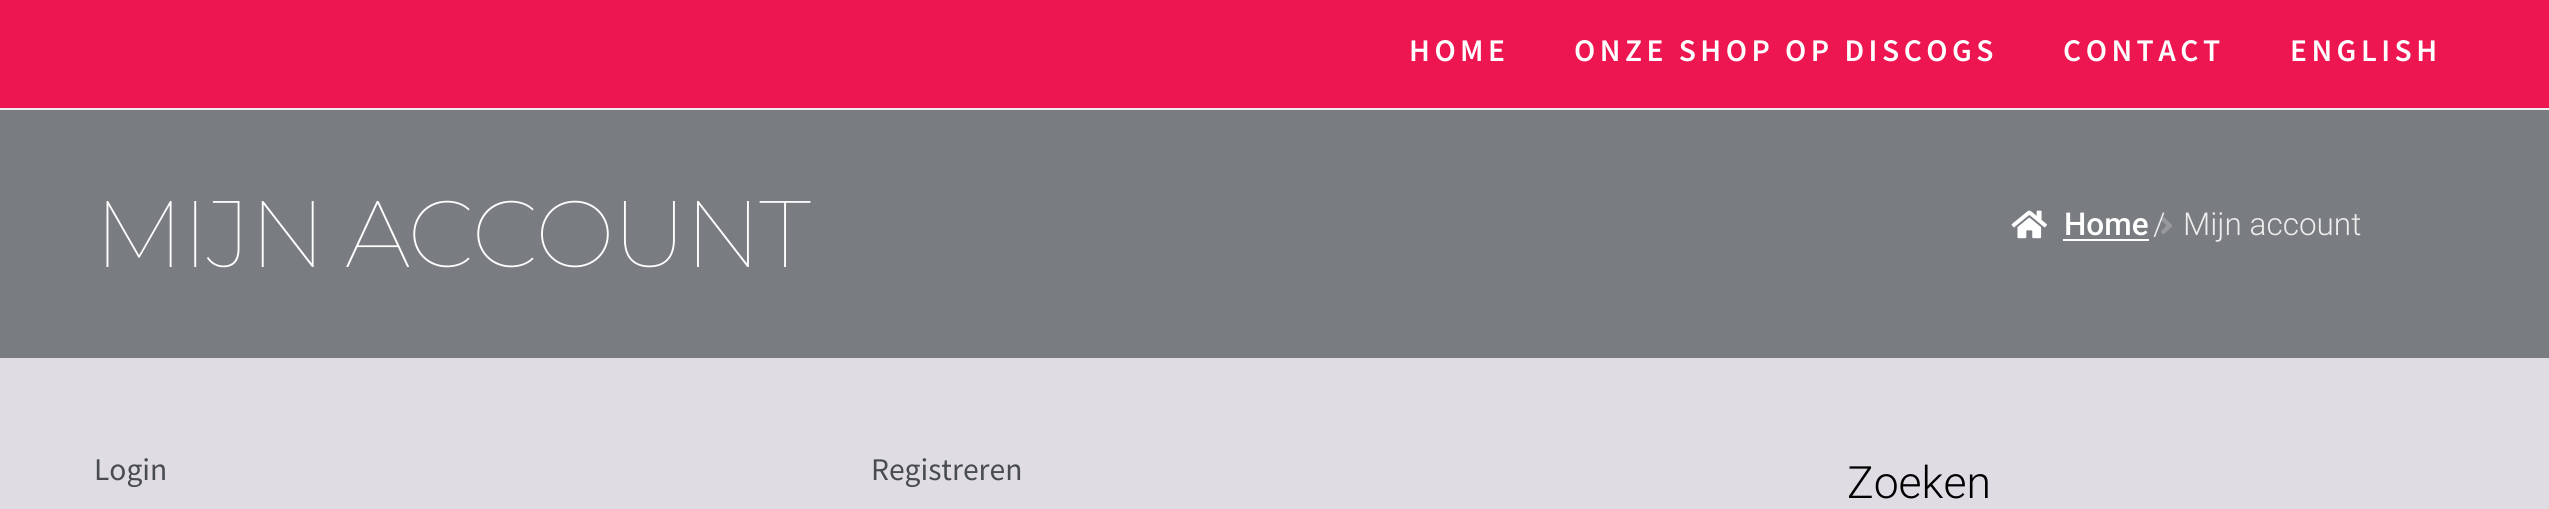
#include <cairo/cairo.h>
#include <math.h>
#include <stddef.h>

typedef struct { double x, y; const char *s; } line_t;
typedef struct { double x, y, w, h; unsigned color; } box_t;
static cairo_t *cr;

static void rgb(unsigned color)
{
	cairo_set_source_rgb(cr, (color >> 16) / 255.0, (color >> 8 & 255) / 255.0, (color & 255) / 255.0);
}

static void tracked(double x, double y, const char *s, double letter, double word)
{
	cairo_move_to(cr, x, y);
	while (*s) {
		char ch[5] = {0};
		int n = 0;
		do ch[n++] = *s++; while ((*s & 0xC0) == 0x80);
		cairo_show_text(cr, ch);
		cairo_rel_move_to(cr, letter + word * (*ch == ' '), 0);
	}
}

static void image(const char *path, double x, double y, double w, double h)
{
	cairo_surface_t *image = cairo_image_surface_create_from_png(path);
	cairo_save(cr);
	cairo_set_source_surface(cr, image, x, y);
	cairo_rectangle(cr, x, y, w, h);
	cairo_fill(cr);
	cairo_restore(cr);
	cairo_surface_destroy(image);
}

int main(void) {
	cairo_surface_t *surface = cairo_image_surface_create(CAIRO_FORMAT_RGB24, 2549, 509);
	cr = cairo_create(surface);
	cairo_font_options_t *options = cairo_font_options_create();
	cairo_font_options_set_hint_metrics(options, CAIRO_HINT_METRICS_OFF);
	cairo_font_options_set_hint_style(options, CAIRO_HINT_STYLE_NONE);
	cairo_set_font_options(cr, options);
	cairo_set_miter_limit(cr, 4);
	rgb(0xe0dce3);
	cairo_paint(cr);
	{
		static const box_t items[] = {
			{0, 108, 2549, 2, 0xededed},
			{0, 0, 2549, 108, 0xed1651},
			{0, 110, 2549, 248, 0x797c80},
		};
		for (size_t i = 0; i < sizeof items / sizeof *items; i++) {
			rgb(items[i].color);
			cairo_rectangle(cr, items[i].x, items[i].y, items[i].w, items[i].h);
			cairo_fill(cr);
		}
	}
	image("img/1.png", 2011, 210, 36, 29);
	rgb(0xffffff);
	cairo_rectangle(cr, 2063, 239, 86, 2);
	cairo_fill(cr);
	cairo_select_font_face(cr, "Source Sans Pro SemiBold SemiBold", CAIRO_FONT_SLANT_NORMAL, CAIRO_FONT_WEIGHT_NORMAL);
	cairo_set_font_size(cr, 31.5);
	{
		static const line_t items[] = {
			{1409, 61, "HOME"},
			{1574, 61, "ONZE SHOP OP DISCOGS"},
			{2063, 61, "CONTACT"},
			{2290, 61, "ENGLISH"},
		};
		for (size_t i = 0; i < sizeof items / sizeof *items; i++) {
			tracked(items[i].x, items[i].y, items[i].s, 4.5, 0);
		}
	}
	cairo_select_font_face(cr, "Montserrat Thin", CAIRO_FONT_SLANT_NORMAL, CAIRO_FONT_WEIGHT_NORMAL);
	cairo_set_font_size(cr, 94.25);
	tracked(94, 267, "MIJN ACCOUNT", -2.25, 0);
	cairo_select_font_face(cr, "Roboto Medium", CAIRO_FONT_SLANT_NORMAL, CAIRO_FONT_WEIGHT_NORMAL);
	cairo_set_font_size(cr, 31.5);
	cairo_move_to(cr, 2064, 235);
	cairo_show_text(cr, "Home");
	cairo_select_font_face(cr, "Roboto Light", CAIRO_FONT_SLANT_NORMAL, CAIRO_FONT_WEIGHT_NORMAL);
	rgb(0xededed);
	cairo_move_to(cr, 2153, 235);
	cairo_show_text(cr, "/");
	image("img/2.png", 2161, 217, 11, 18);
	cairo_move_to(cr, 2183, 235);
	cairo_show_text(cr, "Mijn account");
	cairo_select_font_face(cr, "Source Sans Pro", CAIRO_FONT_SLANT_NORMAL, CAIRO_FONT_WEIGHT_NORMAL);
	rgb(0x484c51);
	cairo_move_to(cr, 94, 480);
	cairo_show_text(cr, "Login");
	cairo_move_to(cr, 871, 480);
	cairo_show_text(cr, "Registreren");
	cairo_select_font_face(cr, "Roboto Light", CAIRO_FONT_SLANT_NORMAL, CAIRO_FONT_WEIGHT_NORMAL);
	cairo_set_font_size(cr, 44.5);
	rgb(0x000000);
	cairo_move_to(cr, 1847, 498);
	cairo_show_text(cr, "Zoeken");
	cairo_surface_write_to_png(surface, "page.png");
	cairo_font_options_destroy(options);
	cairo_destroy(cr);
	cairo_surface_destroy(surface);
	return 0;
}
